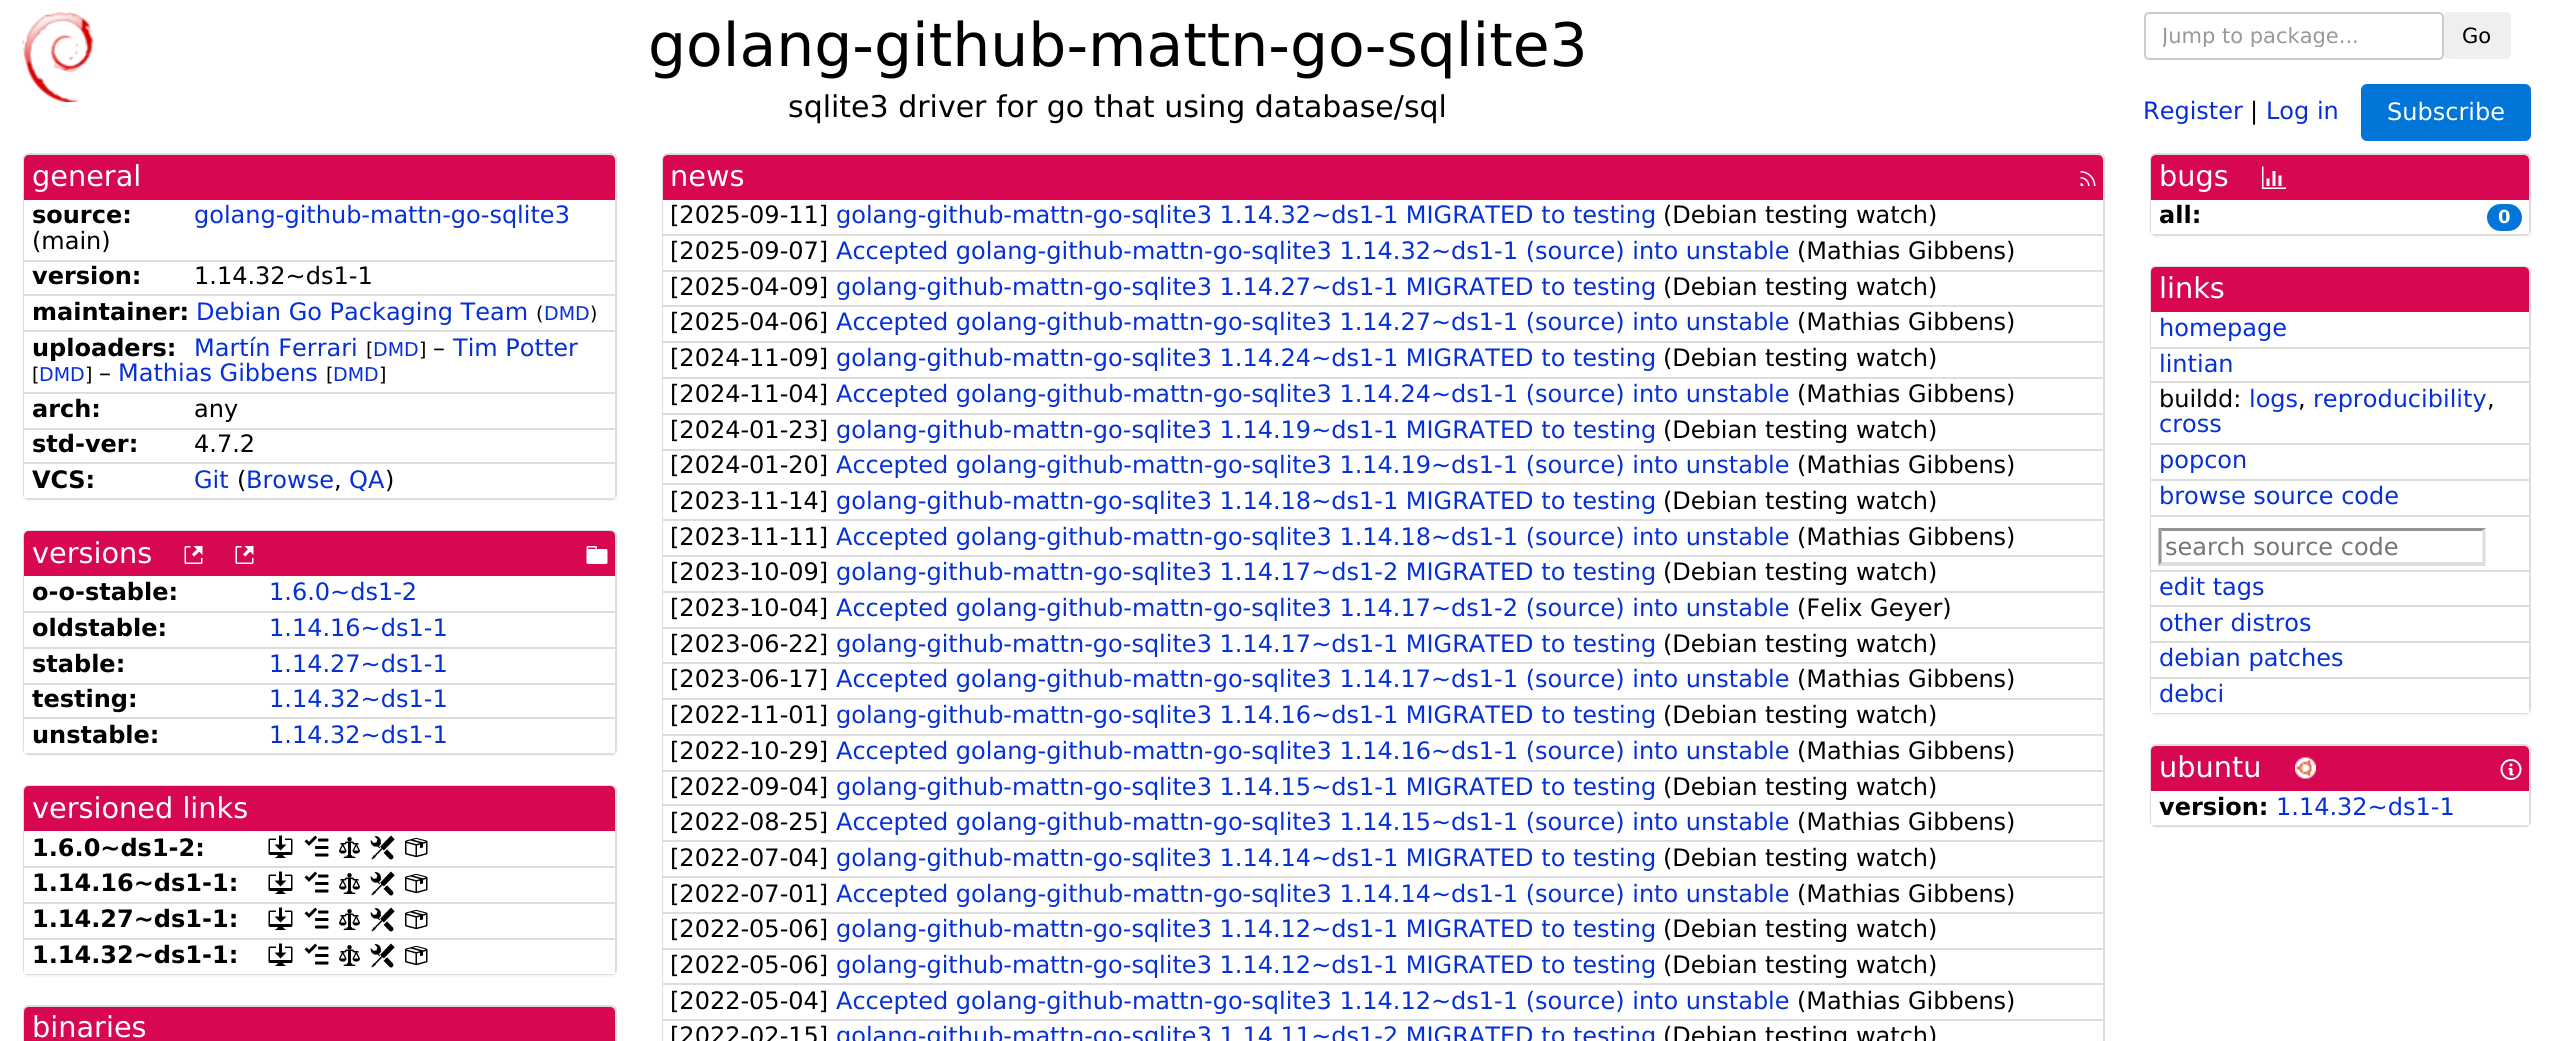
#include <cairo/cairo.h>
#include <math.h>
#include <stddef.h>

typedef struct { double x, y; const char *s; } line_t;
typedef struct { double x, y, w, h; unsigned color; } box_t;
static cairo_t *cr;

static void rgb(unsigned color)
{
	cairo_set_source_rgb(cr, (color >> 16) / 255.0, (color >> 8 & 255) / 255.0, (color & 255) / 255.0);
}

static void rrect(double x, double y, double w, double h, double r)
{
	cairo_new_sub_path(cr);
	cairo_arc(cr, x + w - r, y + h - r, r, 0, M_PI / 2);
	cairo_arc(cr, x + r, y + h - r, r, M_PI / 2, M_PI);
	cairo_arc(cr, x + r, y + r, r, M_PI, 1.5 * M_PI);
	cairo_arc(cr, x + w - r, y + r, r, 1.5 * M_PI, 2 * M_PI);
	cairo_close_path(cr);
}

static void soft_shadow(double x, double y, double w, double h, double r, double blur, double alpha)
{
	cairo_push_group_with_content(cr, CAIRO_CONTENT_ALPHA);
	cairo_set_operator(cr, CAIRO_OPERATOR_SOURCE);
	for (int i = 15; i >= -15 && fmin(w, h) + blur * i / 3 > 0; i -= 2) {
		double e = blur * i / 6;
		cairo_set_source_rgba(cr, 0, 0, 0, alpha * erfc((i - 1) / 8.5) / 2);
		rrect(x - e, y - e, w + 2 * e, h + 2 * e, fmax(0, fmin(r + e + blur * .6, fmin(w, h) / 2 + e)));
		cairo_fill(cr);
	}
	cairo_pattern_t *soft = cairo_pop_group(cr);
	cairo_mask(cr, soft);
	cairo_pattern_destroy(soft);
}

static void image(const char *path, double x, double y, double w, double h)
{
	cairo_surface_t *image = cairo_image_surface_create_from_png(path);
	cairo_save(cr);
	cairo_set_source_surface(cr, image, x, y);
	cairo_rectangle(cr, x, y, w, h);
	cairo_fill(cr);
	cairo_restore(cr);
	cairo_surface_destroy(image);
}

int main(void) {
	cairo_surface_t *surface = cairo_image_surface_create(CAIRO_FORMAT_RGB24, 2552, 1041);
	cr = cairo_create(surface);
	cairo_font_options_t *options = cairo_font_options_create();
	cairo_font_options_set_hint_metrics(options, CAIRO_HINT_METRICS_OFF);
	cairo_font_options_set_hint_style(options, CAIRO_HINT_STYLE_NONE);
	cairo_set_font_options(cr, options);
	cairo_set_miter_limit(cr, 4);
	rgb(0xffffff);
	cairo_paint(cr);
	image("img/1.png", 22, 12, 71, 90);
	rrect(2145, 13, 298, 46, 4);
	rgb(0xcccccc);
	cairo_stroke(cr);
	rgb(0xefefef);
	rrect(2444, 12, 67, 47, 5);
	cairo_fill(cr);
	rgb(0x0275d8);
	rrect(2362, 85, 168, 55, 5);
	cairo_fill_preserve(cr);
	cairo_stroke(cr);
	rgb(0x000000);
	soft_shadow(23, 155, 594, 346, 6, 1, 0.05);
	rgb(0xffffff);
	rrect(24, 154, 592, 345, 5);
	cairo_fill_preserve(cr);
	rgb(0xdddddd);
	cairo_stroke(cr);
	rgb(0xd70751);
	cairo_new_path(cr);
	cairo_move_to(cr, 29, 155);
	cairo_line_to(cr, 610, 155);
	cairo_curve_to(cr, 613, 155, 615, 157, 615, 160);
	cairo_line_to(cr, 615, 201);
	cairo_line_to(cr, 24, 201);
	cairo_line_to(cr, 24, 160);
	cairo_curve_to(cr, 24, 157, 26, 155, 29, 155);
	cairo_close_path(cr);
	cairo_fill(cr);
	{
		static const box_t items[] = {
			{24, 200, 591, 298, 0xffffff},
			{24, 260, 591, 2, 0xdddddd},
			{24, 294, 591, 2, 0xdddddd},
			{24, 330, 591, 2, 0xdddddd},
			{24, 392, 591, 2, 0xdddddd},
			{24, 428, 591, 2, 0xdddddd},
			{24, 462, 591, 2, 0xdddddd},
		};
		for (size_t i = 0; i < sizeof items / sizeof *items; i++) {
			rgb(items[i].color);
			cairo_rectangle(cr, items[i].x, items[i].y, items[i].w, items[i].h);
			cairo_fill(cr);
		}
	}
	rgb(0x000000);
	soft_shadow(23, 531, 594, 225, 6, 1, 0.05);
	rrect(24, 531, 592, 223, 5);
	rgb(0xdddddd);
	cairo_stroke(cr);
	rgb(0xd70751);
	cairo_new_path(cr);
	cairo_move_to(cr, 29, 531);
	cairo_line_to(cr, 610, 531);
	cairo_curve_to(cr, 613, 531, 615, 533, 615, 536);
	cairo_line_to(cr, 615, 578);
	cairo_line_to(cr, 24, 578);
	cairo_line_to(cr, 24, 536);
	cairo_curve_to(cr, 24, 533, 26, 531, 29, 531);
	cairo_close_path(cr);
	cairo_fill(cr);
	image("img/2.png", 184, 546, 19, 18);
	image("img/2.png", 235, 546, 19, 18);
	image("img/3.png", 586, 546, 22, 18);
	{
		static const box_t items[] = {
			{24, 576, 591, 177, 0xffffff},
			{24, 611, 591, 2, 0xdddddd},
			{24, 647, 591, 2, 0xdddddd},
			{24, 683, 591, 2, 0xdddddd},
			{24, 717, 591, 2, 0xdddddd},
		};
		for (size_t i = 0; i < sizeof items / sizeof *items; i++) {
			rgb(items[i].color);
			cairo_rectangle(cr, items[i].x, items[i].y, items[i].w, items[i].h);
			cairo_fill(cr);
		}
	}
	rgb(0x000000);
	soft_shadow(23, 786, 594, 191, 6, 1, 0.05);
	rrect(24, 786, 592, 188, 5);
	rgb(0xdddddd);
	cairo_stroke(cr);
	rgb(0xd70751);
	cairo_new_path(cr);
	cairo_move_to(cr, 29, 786);
	cairo_line_to(cr, 610, 786);
	cairo_curve_to(cr, 613, 786, 615, 788, 615, 791);
	cairo_line_to(cr, 615, 833);
	cairo_line_to(cr, 24, 833);
	cairo_line_to(cr, 24, 791);
	cairo_curve_to(cr, 24, 788, 26, 786, 29, 786);
	cairo_close_path(cr);
	cairo_fill(cr);
	rgb(0xffffff);
	cairo_rectangle(cr, 24, 831, 591, 143);
	cairo_fill(cr);
	image("img/4.png", 268, 835, 25, 23);
	image("img/5.png", 304, 835, 25, 22);
	image("img/6.png", 339, 837, 21, 21);
	image("img/7.png", 370, 835, 25, 25);
	image("img/8.png", 405, 837, 23, 21);
	rgb(0xdddddd);
	cairo_rectangle(cr, 24, 866, 591, 2);
	cairo_fill(cr);
	image("img/4.png", 268, 871, 25, 23);
	image("img/5.png", 304, 871, 25, 22);
	image("img/6.png", 339, 873, 21, 21);
	image("img/7.png", 370, 871, 25, 25);
	image("img/8.png", 405, 873, 23, 21);
	cairo_rectangle(cr, 24, 902, 591, 2);
	cairo_fill(cr);
	image("img/4.png", 268, 907, 25, 23);
	image("img/5.png", 304, 907, 25, 22);
	image("img/6.png", 339, 909, 21, 21);
	image("img/7.png", 370, 907, 25, 25);
	image("img/8.png", 405, 909, 23, 21);
	cairo_rectangle(cr, 24, 938, 591, 2);
	cairo_fill(cr);
	image("img/4.png", 268, 943, 25, 23);
	image("img/5.png", 304, 943, 25, 22);
	image("img/6.png", 339, 945, 21, 21);
	image("img/7.png", 370, 943, 25, 25);
	image("img/8.png", 405, 945, 23, 21);
	rrect(24, 1006, 592, 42, 5);
	cairo_stroke(cr);
	rgb(0xd70751);
	cairo_new_path(cr);
	cairo_move_to(cr, 29, 1007);
	cairo_line_to(cr, 610, 1007);
	cairo_curve_to(cr, 613, 1007, 615, 1009, 615, 1012);
	cairo_line_to(cr, 615, 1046);
	cairo_line_to(cr, 24, 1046);
	cairo_line_to(cr, 24, 1012);
	cairo_curve_to(cr, 24, 1009, 26, 1007, 29, 1007);
	cairo_close_path(cr);
	cairo_fill(cr);
	rrect(663, 154, 1441, 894, 5);
	rgb(0xdddddd);
	cairo_stroke(cr);
	rgb(0xd70751);
	cairo_new_path(cr);
	cairo_move_to(cr, 668, 155);
	cairo_line_to(cr, 2098, 155);
	cairo_curve_to(cr, 2101, 155, 2103, 157, 2103, 160);
	cairo_line_to(cr, 2103, 201);
	cairo_line_to(cr, 663, 201);
	cairo_line_to(cr, 663, 160);
	cairo_curve_to(cr, 663, 157, 665, 155, 668, 155);
	cairo_close_path(cr);
	cairo_fill(cr);
	image("img/9.png", 2080, 171, 16, 15);
	{
		static const box_t items[] = {
			{663, 200, 1440, 783, 0xffffff},
			{663, 234, 1440, 2, 0xdddddd},
			{663, 270, 1440, 2, 0xdddddd},
			{663, 305, 1440, 2, 0xdddddd},
			{663, 341, 1440, 2, 0xdddddd},
			{663, 377, 1440, 2, 0xdddddd},
			{663, 413, 1440, 2, 0xdddddd},
			{663, 449, 1440, 2, 0xdddddd},
			{663, 483, 1440, 2, 0xdddddd},
			{663, 519, 1440, 2, 0xdddddd},
			{663, 555, 1440, 2, 0xdddddd},
			{663, 591, 1440, 2, 0xdddddd},
			{663, 627, 1440, 2, 0xdddddd},
			{663, 662, 1440, 2, 0xdddddd},
			{663, 698, 1440, 2, 0xdddddd},
			{663, 734, 1440, 2, 0xdddddd},
			{663, 770, 1440, 2, 0xdddddd},
			{663, 804, 1440, 2, 0xdddddd},
			{663, 840, 1440, 2, 0xdddddd},
			{663, 876, 1440, 2, 0xdddddd},
			{663, 912, 1440, 2, 0xdddddd},
			{663, 948, 1440, 2, 0xdddddd},
			{663, 985, 1, 34, 0xffffff},
			{663, 983, 1440, 2, 0xdddddd},
			{663, 1021, 1, 20, 0xffffff},
			{663, 1019, 1440, 2, 0xdddddd},
		};
		for (size_t i = 0; i < sizeof items / sizeof *items; i++) {
			rgb(items[i].color);
			cairo_rectangle(cr, items[i].x, items[i].y, items[i].w, items[i].h);
			cairo_fill(cr);
		}
	}
	rgb(0x000000);
	soft_shadow(2150, 155, 381, 82, 6, 1, 0.05);
	rgb(0xffffff);
	rrect(2151, 154, 379, 81, 5);
	cairo_fill_preserve(cr);
	rgb(0xdddddd);
	cairo_stroke(cr);
	rgb(0xd70751);
	cairo_new_path(cr);
	cairo_move_to(cr, 2156, 155);
	cairo_line_to(cr, 2524, 155);
	cairo_curve_to(cr, 2527, 155, 2529, 157, 2529, 160);
	cairo_line_to(cr, 2529, 201);
	cairo_line_to(cr, 2151, 201);
	cairo_line_to(cr, 2151, 160);
	cairo_curve_to(cr, 2151, 157, 2153, 155, 2156, 155);
	cairo_close_path(cr);
	cairo_fill(cr);
	image("img/10.png", 2262, 166, 24, 23);
	rgb(0xffffff);
	cairo_rectangle(cr, 2151, 200, 378, 34);
	cairo_fill(cr);
	rgb(0x0275d8);
	rrect(2487, 204, 35, 27, 13.5);
	cairo_fill(cr);
	rgb(0x000000);
	soft_shadow(2150, 267, 381, 449, 6, 1, 0.05);
	rrect(2151, 267, 379, 446, 5);
	rgb(0xdddddd);
	cairo_stroke(cr);
	rgb(0xd70751);
	cairo_new_path(cr);
	cairo_move_to(cr, 2156, 267);
	cairo_line_to(cr, 2524, 267);
	cairo_curve_to(cr, 2527, 267, 2529, 269, 2529, 272);
	cairo_line_to(cr, 2529, 314);
	cairo_line_to(cr, 2151, 314);
	cairo_line_to(cr, 2151, 272);
	cairo_curve_to(cr, 2151, 269, 2153, 267, 2156, 267);
	cairo_close_path(cr);
	cairo_fill(cr);
	{
		static const box_t items[] = {
			{2151, 312, 378, 401, 0xffffff},
			{2151, 347, 378, 2, 0xdddddd},
			{2151, 381, 378, 2, 0xdddddd},
			{2151, 443, 378, 2, 0xdddddd},
			{2151, 479, 378, 2, 0xdddddd},
			{2151, 515, 378, 2, 0xdddddd},
			{2151, 570, 378, 2, 0xdddddd},
		};
		for (size_t i = 0; i < sizeof items / sizeof *items; i++) {
			rgb(items[i].color);
			cairo_rectangle(cr, items[i].x, items[i].y, items[i].w, items[i].h);
			cairo_fill(cr);
		}
	}
	rgb(0x939393);
	cairo_new_path(cr);
	cairo_move_to(cr, 2158, 528);
	cairo_line_to(cr, 2486, 528);
	cairo_line_to(cr, 2482, 531);
	cairo_line_to(cr, 2162, 531);
	cairo_close_path(cr);
	cairo_fill(cr);
	rgb(0xdddddd);
	cairo_new_path(cr);
	cairo_move_to(cr, 2485.5, 528);
	cairo_line_to(cr, 2485.5, 565.5);
	cairo_line_to(cr, 2482.5, 562.5);
	cairo_line_to(cr, 2482.5, 531);
	cairo_close_path(cr);
	cairo_fill(cr);
	cairo_new_path(cr);
	cairo_move_to(cr, 2486, 566);
	cairo_line_to(cr, 2158, 566);
	cairo_line_to(cr, 2162, 562);
	cairo_line_to(cr, 2482, 562);
	cairo_close_path(cr);
	cairo_fill(cr);
	rgb(0x939393);
	cairo_new_path(cr);
	cairo_move_to(cr, 2158.5, 565.5);
	cairo_line_to(cr, 2158.5, 528);
	cairo_line_to(cr, 2161.5, 531);
	cairo_line_to(cr, 2161.5, 562.5);
	cairo_close_path(cr);
	cairo_fill(cr);
	{
		static const box_t items[] = {
			{2151, 605, 378, 2, 0xdddddd},
			{2151, 641, 378, 2, 0xdddddd},
			{2151, 677, 378, 2, 0xdddddd},
		};
		for (size_t i = 0; i < sizeof items / sizeof *items; i++) {
			rgb(items[i].color);
			cairo_rectangle(cr, items[i].x, items[i].y, items[i].w, items[i].h);
			cairo_fill(cr);
		}
	}
	rgb(0x000000);
	soft_shadow(2150, 746, 381, 82, 6, 1, 0.05);
	rgb(0xffffff);
	rrect(2151, 745, 379, 81, 5);
	cairo_fill_preserve(cr);
	rgb(0xdddddd);
	cairo_stroke(cr);
	rgb(0xd70751);
	cairo_new_path(cr);
	cairo_move_to(cr, 2156, 746);
	cairo_line_to(cr, 2524, 746);
	cairo_curve_to(cr, 2527, 746, 2529, 748, 2529, 751);
	cairo_line_to(cr, 2529, 792);
	cairo_line_to(cr, 2151, 792);
	cairo_line_to(cr, 2151, 751);
	cairo_curve_to(cr, 2151, 748, 2153, 746, 2156, 746);
	cairo_close_path(cr);
	cairo_fill(cr);
	image("img/11.png", 2295, 757, 21, 22);
	image("img/12.png", 2500, 759, 22, 21);
	rgb(0xffffff);
	cairo_rectangle(cr, 2151, 791, 378, 34);
	cairo_fill(cr);
	cairo_select_font_face(cr, "DejaVu Sans", CAIRO_FONT_SLANT_NORMAL, CAIRO_FONT_WEIGHT_NORMAL);
	cairo_set_font_size(cr, 60);
	rgb(0x000000);
	cairo_move_to(cr, 648, 66);
	cairo_show_text(cr, "golang-github-mattn-go-sqlite3");
	cairo_set_font_size(cr, 30);
	cairo_move_to(cr, 788, 117);
	cairo_show_text(cr, "sqlite3 driver for go that using database/sql");
	cairo_save(cr);
	cairo_rectangle(cr, 2163, 23, 255, 24);
	cairo_clip(cr);
	cairo_set_font_size(cr, 21);
	rgb(0x999999);
	cairo_move_to(cr, 2162, 43);
	cairo_show_text(cr, "Jump to package...");
	cairo_restore(cr);
	cairo_set_font_size(cr, 21);
	cairo_move_to(cr, 2462, 43);
	cairo_show_text(cr, "Go");
	cairo_set_font_size(cr, 24);
	rgb(0x0530d7);
	cairo_move_to(cr, 2143, 119);
	cairo_show_text(cr, "Register");
	rgb(0x000000);
	cairo_move_to(cr, 2250, 119);
	cairo_show_text(cr, "|");
	rgb(0x0530d7);
	cairo_move_to(cr, 2266, 119);
	cairo_show_text(cr, "Log in");
	rgb(0xffffff);
	cairo_move_to(cr, 2387, 120);
	cairo_show_text(cr, "Subscribe");
	cairo_set_font_size(cr, 28.75);
	cairo_move_to(cr, 32, 186);
	cairo_show_text(cr, "general");
	cairo_select_font_face(cr, "DejaVu Sans", CAIRO_FONT_SLANT_NORMAL, CAIRO_FONT_WEIGHT_BOLD);
	cairo_set_font_size(cr, 24);
	rgb(0x000000);
	cairo_move_to(cr, 32, 223);
	cairo_show_text(cr, "source:");
	cairo_select_font_face(cr, "DejaVu Sans", CAIRO_FONT_SLANT_NORMAL, CAIRO_FONT_WEIGHT_NORMAL);
	rgb(0x0530d7);
	cairo_move_to(cr, 194, 223);
	cairo_show_text(cr, "golang-github-mattn-go-sqlite3");
	rgb(0x000000);
	cairo_move_to(cr, 32, 249);
	cairo_show_text(cr, "(main)");
	cairo_select_font_face(cr, "DejaVu Sans", CAIRO_FONT_SLANT_NORMAL, CAIRO_FONT_WEIGHT_BOLD);
	cairo_move_to(cr, 32, 284);
	cairo_show_text(cr, "version:");
	cairo_select_font_face(cr, "DejaVu Sans", CAIRO_FONT_SLANT_NORMAL, CAIRO_FONT_WEIGHT_NORMAL);
	cairo_move_to(cr, 194, 284);
	cairo_show_text(cr, "1.14.32~ds1-1");
	cairo_select_font_face(cr, "DejaVu Sans", CAIRO_FONT_SLANT_NORMAL, CAIRO_FONT_WEIGHT_BOLD);
	cairo_move_to(cr, 32, 320);
	cairo_show_text(cr, "maintainer:");
	cairo_select_font_face(cr, "DejaVu Sans", CAIRO_FONT_SLANT_NORMAL, CAIRO_FONT_WEIGHT_NORMAL);
	rgb(0x0530d7);
	cairo_move_to(cr, 196, 320);
	cairo_show_text(cr, "Debian Go Packaging Team");
	cairo_set_font_size(cr, 19);
	rgb(0x000000);
	cairo_move_to(cr, 536, 320);
	cairo_show_text(cr, "(");
	rgb(0x0530d7);
	cairo_move_to(cr, 544, 320);
	cairo_show_text(cr, "DMD");
	rgb(0x000000);
	cairo_move_to(cr, 590, 320);
	cairo_show_text(cr, ")");
	cairo_select_font_face(cr, "DejaVu Sans", CAIRO_FONT_SLANT_NORMAL, CAIRO_FONT_WEIGHT_BOLD);
	cairo_set_font_size(cr, 24);
	cairo_move_to(cr, 32, 356);
	cairo_show_text(cr, "uploaders:");
	cairo_select_font_face(cr, "DejaVu Sans", CAIRO_FONT_SLANT_NORMAL, CAIRO_FONT_WEIGHT_NORMAL);
	rgb(0x0530d7);
	cairo_move_to(cr, 194, 356);
	cairo_show_text(cr, "Martín Ferrari");
	cairo_set_font_size(cr, 19);
	rgb(0x000000);
	cairo_move_to(cr, 366, 356);
	cairo_show_text(cr, "[");
	rgb(0x0530d7);
	cairo_move_to(cr, 373, 356);
	cairo_show_text(cr, "DMD");
	rgb(0x000000);
	cairo_move_to(cr, 419, 356);
	cairo_show_text(cr, "]");
	cairo_set_font_size(cr, 24);
	cairo_move_to(cr, 433, 356);
	cairo_show_text(cr, "–");
	rgb(0x0530d7);
	cairo_move_to(cr, 453, 356);
	cairo_show_text(cr, "Tim Potter");
	cairo_set_font_size(cr, 19);
	rgb(0x000000);
	cairo_move_to(cr, 32, 381);
	cairo_show_text(cr, "[");
	rgb(0x0530d7);
	cairo_move_to(cr, 39, 381);
	cairo_show_text(cr, "DMD");
	rgb(0x000000);
	cairo_move_to(cr, 85, 381);
	cairo_show_text(cr, "]");
	cairo_set_font_size(cr, 24);
	cairo_move_to(cr, 99, 381);
	cairo_show_text(cr, "–");
	rgb(0x0530d7);
	cairo_move_to(cr, 118, 381);
	cairo_show_text(cr, "Mathias Gibbens");
	cairo_set_font_size(cr, 19);
	rgb(0x000000);
	cairo_move_to(cr, 326, 381);
	cairo_show_text(cr, "[");
	rgb(0x0530d7);
	cairo_move_to(cr, 333, 381);
	cairo_show_text(cr, "DMD");
	rgb(0x000000);
	cairo_move_to(cr, 379, 381);
	cairo_show_text(cr, "]");
	cairo_select_font_face(cr, "DejaVu Sans", CAIRO_FONT_SLANT_NORMAL, CAIRO_FONT_WEIGHT_BOLD);
	cairo_set_font_size(cr, 24);
	cairo_move_to(cr, 32, 417);
	cairo_show_text(cr, "arch:");
	cairo_select_font_face(cr, "DejaVu Sans", CAIRO_FONT_SLANT_NORMAL, CAIRO_FONT_WEIGHT_NORMAL);
	cairo_move_to(cr, 194, 417);
	cairo_show_text(cr, "any");
	cairo_select_font_face(cr, "DejaVu Sans", CAIRO_FONT_SLANT_NORMAL, CAIRO_FONT_WEIGHT_BOLD);
	cairo_move_to(cr, 32, 452);
	cairo_show_text(cr, "std-ver:");
	cairo_select_font_face(cr, "DejaVu Sans", CAIRO_FONT_SLANT_NORMAL, CAIRO_FONT_WEIGHT_NORMAL);
	cairo_move_to(cr, 194, 452);
	cairo_show_text(cr, "4.7.2");
	cairo_select_font_face(cr, "DejaVu Sans", CAIRO_FONT_SLANT_NORMAL, CAIRO_FONT_WEIGHT_BOLD);
	cairo_move_to(cr, 32, 488);
	cairo_show_text(cr, "VCS:");
	cairo_select_font_face(cr, "DejaVu Sans", CAIRO_FONT_SLANT_NORMAL, CAIRO_FONT_WEIGHT_NORMAL);
	rgb(0x0530d7);
	cairo_move_to(cr, 194, 488);
	cairo_show_text(cr, "Git");
	rgb(0x000000);
	cairo_move_to(cr, 237, 488);
	cairo_show_text(cr, "(");
	rgb(0x0530d7);
	cairo_move_to(cr, 246, 488);
	cairo_show_text(cr, "Browse");
	rgb(0x000000);
	cairo_move_to(cr, 334, 488);
	cairo_show_text(cr, ",");
	rgb(0x0530d7);
	cairo_move_to(cr, 349, 488);
	cairo_show_text(cr, "QA");
	rgb(0x000000);
	cairo_move_to(cr, 385, 488);
	cairo_show_text(cr, ")");
	cairo_set_font_size(cr, 28.75);
	rgb(0xffffff);
	cairo_move_to(cr, 32, 563);
	cairo_show_text(cr, "versions");
	cairo_select_font_face(cr, "DejaVu Sans", CAIRO_FONT_SLANT_NORMAL, CAIRO_FONT_WEIGHT_BOLD);
	cairo_set_font_size(cr, 24);
	rgb(0x000000);
	cairo_move_to(cr, 32, 600);
	cairo_show_text(cr, "o-o-stable:");
	cairo_select_font_face(cr, "DejaVu Sans", CAIRO_FONT_SLANT_NORMAL, CAIRO_FONT_WEIGHT_NORMAL);
	rgb(0x0530d7);
	cairo_move_to(cr, 269, 600);
	cairo_show_text(cr, "1.6.0~ds1-2");
	cairo_select_font_face(cr, "DejaVu Sans", CAIRO_FONT_SLANT_NORMAL, CAIRO_FONT_WEIGHT_BOLD);
	rgb(0x000000);
	cairo_move_to(cr, 32, 636);
	cairo_show_text(cr, "oldstable:");
	cairo_select_font_face(cr, "DejaVu Sans", CAIRO_FONT_SLANT_NORMAL, CAIRO_FONT_WEIGHT_NORMAL);
	rgb(0x0530d7);
	cairo_move_to(cr, 269, 636);
	cairo_show_text(cr, "1.14.16~ds1-1");
	cairo_select_font_face(cr, "DejaVu Sans", CAIRO_FONT_SLANT_NORMAL, CAIRO_FONT_WEIGHT_BOLD);
	rgb(0x000000);
	cairo_move_to(cr, 32, 672);
	cairo_show_text(cr, "stable:");
	cairo_select_font_face(cr, "DejaVu Sans", CAIRO_FONT_SLANT_NORMAL, CAIRO_FONT_WEIGHT_NORMAL);
	rgb(0x0530d7);
	cairo_move_to(cr, 269, 672);
	cairo_show_text(cr, "1.14.27~ds1-1");
	cairo_select_font_face(cr, "DejaVu Sans", CAIRO_FONT_SLANT_NORMAL, CAIRO_FONT_WEIGHT_BOLD);
	rgb(0x000000);
	cairo_move_to(cr, 32, 707);
	cairo_show_text(cr, "testing:");
	cairo_select_font_face(cr, "DejaVu Sans", CAIRO_FONT_SLANT_NORMAL, CAIRO_FONT_WEIGHT_NORMAL);
	rgb(0x0530d7);
	cairo_move_to(cr, 269, 707);
	cairo_show_text(cr, "1.14.32~ds1-1");
	cairo_select_font_face(cr, "DejaVu Sans", CAIRO_FONT_SLANT_NORMAL, CAIRO_FONT_WEIGHT_BOLD);
	rgb(0x000000);
	cairo_move_to(cr, 32, 743);
	cairo_show_text(cr, "unstable:");
	cairo_select_font_face(cr, "DejaVu Sans", CAIRO_FONT_SLANT_NORMAL, CAIRO_FONT_WEIGHT_NORMAL);
	rgb(0x0530d7);
	cairo_move_to(cr, 269, 743);
	cairo_show_text(cr, "1.14.32~ds1-1");
	cairo_set_font_size(cr, 28.75);
	rgb(0xffffff);
	cairo_move_to(cr, 32, 818);
	cairo_show_text(cr, "versioned links");
	cairo_select_font_face(cr, "DejaVu Sans", CAIRO_FONT_SLANT_NORMAL, CAIRO_FONT_WEIGHT_BOLD);
	cairo_set_font_size(cr, 24);
	rgb(0x000000);
	{
		static const line_t items[] = {
			{32, 856, "1.6.0~ds1-2:"},
			{32, 891, "1.14.16~ds1-1:"},
			{32, 927, "1.14.27~ds1-1:"},
			{32, 963, "1.14.32~ds1-1:"},
		};
		for (size_t i = 0; i < sizeof items / sizeof *items; i++) {
			cairo_move_to(cr, items[i].x, items[i].y);
			cairo_show_text(cr, items[i].s);
		}
	}
	cairo_select_font_face(cr, "DejaVu Sans", CAIRO_FONT_SLANT_NORMAL, CAIRO_FONT_WEIGHT_NORMAL);
	cairo_set_font_size(cr, 28.75);
	rgb(0xffffff);
	cairo_move_to(cr, 32, 1037);
	cairo_show_text(cr, "binaries");
	cairo_move_to(cr, 670, 186);
	cairo_show_text(cr, "news");
	cairo_set_font_size(cr, 24);
	rgb(0x000000);
	cairo_move_to(cr, 670, 223);
	cairo_show_text(cr, "[2025-09-11]");
	rgb(0x0530d7);
	cairo_move_to(cr, 836, 223);
	cairo_show_text(cr, "golang-github-mattn-go-sqlite3 1.14.32~ds1-1 MIGRATED to testing");
	rgb(0x000000);
	cairo_move_to(cr, 1663, 223);
	cairo_show_text(cr, "(Debian testing watch)");
	cairo_move_to(cr, 670, 259);
	cairo_show_text(cr, "[2025-09-07]");
	rgb(0x0530d7);
	cairo_move_to(cr, 836, 259);
	cairo_show_text(cr, "Accepted golang-github-mattn-go-sqlite3 1.14.32~ds1-1 (source) into unstable");
	rgb(0x000000);
	cairo_move_to(cr, 1797, 259);
	cairo_show_text(cr, "(Mathias Gibbens)");
	cairo_move_to(cr, 670, 295);
	cairo_show_text(cr, "[2025-04-09]");
	rgb(0x0530d7);
	cairo_move_to(cr, 836, 295);
	cairo_show_text(cr, "golang-github-mattn-go-sqlite3 1.14.27~ds1-1 MIGRATED to testing");
	rgb(0x000000);
	cairo_move_to(cr, 1663, 295);
	cairo_show_text(cr, "(Debian testing watch)");
	cairo_move_to(cr, 670, 330);
	cairo_show_text(cr, "[2025-04-06]");
	rgb(0x0530d7);
	cairo_move_to(cr, 836, 330);
	cairo_show_text(cr, "Accepted golang-github-mattn-go-sqlite3 1.14.27~ds1-1 (source) into unstable");
	rgb(0x000000);
	cairo_move_to(cr, 1797, 330);
	cairo_show_text(cr, "(Mathias Gibbens)");
	cairo_move_to(cr, 670, 366);
	cairo_show_text(cr, "[2024-11-09]");
	rgb(0x0530d7);
	cairo_move_to(cr, 836, 366);
	cairo_show_text(cr, "golang-github-mattn-go-sqlite3 1.14.24~ds1-1 MIGRATED to testing");
	rgb(0x000000);
	cairo_move_to(cr, 1663, 366);
	cairo_show_text(cr, "(Debian testing watch)");
	cairo_move_to(cr, 670, 402);
	cairo_show_text(cr, "[2024-11-04]");
	rgb(0x0530d7);
	cairo_move_to(cr, 836, 402);
	cairo_show_text(cr, "Accepted golang-github-mattn-go-sqlite3 1.14.24~ds1-1 (source) into unstable");
	rgb(0x000000);
	cairo_move_to(cr, 1797, 402);
	cairo_show_text(cr, "(Mathias Gibbens)");
	cairo_move_to(cr, 670, 438);
	cairo_show_text(cr, "[2024-01-23]");
	rgb(0x0530d7);
	cairo_move_to(cr, 836, 438);
	cairo_show_text(cr, "golang-github-mattn-go-sqlite3 1.14.19~ds1-1 MIGRATED to testing");
	rgb(0x000000);
	cairo_move_to(cr, 1663, 438);
	cairo_show_text(cr, "(Debian testing watch)");
	cairo_move_to(cr, 670, 473);
	cairo_show_text(cr, "[2024-01-20]");
	rgb(0x0530d7);
	cairo_move_to(cr, 836, 473);
	cairo_show_text(cr, "Accepted golang-github-mattn-go-sqlite3 1.14.19~ds1-1 (source) into unstable");
	rgb(0x000000);
	cairo_move_to(cr, 1797, 473);
	cairo_show_text(cr, "(Mathias Gibbens)");
	cairo_move_to(cr, 670, 509);
	cairo_show_text(cr, "[2023-11-14]");
	rgb(0x0530d7);
	cairo_move_to(cr, 836, 509);
	cairo_show_text(cr, "golang-github-mattn-go-sqlite3 1.14.18~ds1-1 MIGRATED to testing");
	rgb(0x000000);
	cairo_move_to(cr, 1663, 509);
	cairo_show_text(cr, "(Debian testing watch)");
	cairo_move_to(cr, 670, 545);
	cairo_show_text(cr, "[2023-11-11]");
	rgb(0x0530d7);
	cairo_move_to(cr, 836, 545);
	cairo_show_text(cr, "Accepted golang-github-mattn-go-sqlite3 1.14.18~ds1-1 (source) into unstable");
	rgb(0x000000);
	cairo_move_to(cr, 1797, 545);
	cairo_show_text(cr, "(Mathias Gibbens)");
	cairo_move_to(cr, 670, 580);
	cairo_show_text(cr, "[2023-10-09]");
	rgb(0x0530d7);
	cairo_move_to(cr, 836, 580);
	cairo_show_text(cr, "golang-github-mattn-go-sqlite3 1.14.17~ds1-2 MIGRATED to testing");
	rgb(0x000000);
	cairo_move_to(cr, 1663, 580);
	cairo_show_text(cr, "(Debian testing watch)");
	cairo_move_to(cr, 670, 616);
	cairo_show_text(cr, "[2023-10-04]");
	rgb(0x0530d7);
	cairo_move_to(cr, 836, 616);
	cairo_show_text(cr, "Accepted golang-github-mattn-go-sqlite3 1.14.17~ds1-2 (source) into unstable");
	rgb(0x000000);
	cairo_move_to(cr, 1797, 616);
	cairo_show_text(cr, "(Felix Geyer)");
	cairo_move_to(cr, 670, 652);
	cairo_show_text(cr, "[2023-06-22]");
	rgb(0x0530d7);
	cairo_move_to(cr, 836, 652);
	cairo_show_text(cr, "golang-github-mattn-go-sqlite3 1.14.17~ds1-1 MIGRATED to testing");
	rgb(0x000000);
	cairo_move_to(cr, 1663, 652);
	cairo_show_text(cr, "(Debian testing watch)");
	cairo_move_to(cr, 670, 687);
	cairo_show_text(cr, "[2023-06-17]");
	rgb(0x0530d7);
	cairo_move_to(cr, 836, 687);
	cairo_show_text(cr, "Accepted golang-github-mattn-go-sqlite3 1.14.17~ds1-1 (source) into unstable");
	rgb(0x000000);
	cairo_move_to(cr, 1797, 687);
	cairo_show_text(cr, "(Mathias Gibbens)");
	cairo_move_to(cr, 670, 723);
	cairo_show_text(cr, "[2022-11-01]");
	rgb(0x0530d7);
	cairo_move_to(cr, 836, 723);
	cairo_show_text(cr, "golang-github-mattn-go-sqlite3 1.14.16~ds1-1 MIGRATED to testing");
	rgb(0x000000);
	cairo_move_to(cr, 1663, 723);
	cairo_show_text(cr, "(Debian testing watch)");
	cairo_move_to(cr, 670, 759);
	cairo_show_text(cr, "[2022-10-29]");
	rgb(0x0530d7);
	cairo_move_to(cr, 836, 759);
	cairo_show_text(cr, "Accepted golang-github-mattn-go-sqlite3 1.14.16~ds1-1 (source) into unstable");
	rgb(0x000000);
	cairo_move_to(cr, 1797, 759);
	cairo_show_text(cr, "(Mathias Gibbens)");
	cairo_move_to(cr, 670, 795);
	cairo_show_text(cr, "[2022-09-04]");
	rgb(0x0530d7);
	cairo_move_to(cr, 836, 795);
	cairo_show_text(cr, "golang-github-mattn-go-sqlite3 1.14.15~ds1-1 MIGRATED to testing");
	rgb(0x000000);
	cairo_move_to(cr, 1663, 795);
	cairo_show_text(cr, "(Debian testing watch)");
	cairo_move_to(cr, 670, 830);
	cairo_show_text(cr, "[2022-08-25]");
	rgb(0x0530d7);
	cairo_move_to(cr, 836, 830);
	cairo_show_text(cr, "Accepted golang-github-mattn-go-sqlite3 1.14.15~ds1-1 (source) into unstable");
	rgb(0x000000);
	cairo_move_to(cr, 1797, 830);
	cairo_show_text(cr, "(Mathias Gibbens)");
	cairo_move_to(cr, 670, 866);
	cairo_show_text(cr, "[2022-07-04]");
	rgb(0x0530d7);
	cairo_move_to(cr, 836, 866);
	cairo_show_text(cr, "golang-github-mattn-go-sqlite3 1.14.14~ds1-1 MIGRATED to testing");
	rgb(0x000000);
	cairo_move_to(cr, 1663, 866);
	cairo_show_text(cr, "(Debian testing watch)");
	cairo_move_to(cr, 670, 902);
	cairo_show_text(cr, "[2022-07-01]");
	rgb(0x0530d7);
	cairo_move_to(cr, 836, 902);
	cairo_show_text(cr, "Accepted golang-github-mattn-go-sqlite3 1.14.14~ds1-1 (source) into unstable");
	rgb(0x000000);
	cairo_move_to(cr, 1797, 902);
	cairo_show_text(cr, "(Mathias Gibbens)");
	cairo_move_to(cr, 670, 937);
	cairo_show_text(cr, "[2022-05-06]");
	rgb(0x0530d7);
	cairo_move_to(cr, 836, 937);
	cairo_show_text(cr, "golang-github-mattn-go-sqlite3 1.14.12~ds1-1 MIGRATED to testing");
	rgb(0x000000);
	cairo_move_to(cr, 1663, 937);
	cairo_show_text(cr, "(Debian testing watch)");
	cairo_move_to(cr, 670, 973);
	cairo_show_text(cr, "[2022-05-06]");
	rgb(0x0530d7);
	cairo_move_to(cr, 836, 973);
	cairo_show_text(cr, "golang-github-mattn-go-sqlite3 1.14.12~ds1-1 MIGRATED to testing");
	rgb(0x000000);
	cairo_move_to(cr, 1663, 973);
	cairo_show_text(cr, "(Debian testing watch)");
	cairo_move_to(cr, 670, 1009);
	cairo_show_text(cr, "[2022-05-04]");
	rgb(0x0530d7);
	cairo_move_to(cr, 836, 1009);
	cairo_show_text(cr, "Accepted golang-github-mattn-go-sqlite3 1.14.12~ds1-1 (source) into unstable");
	rgb(0x000000);
	cairo_move_to(cr, 1797, 1009);
	cairo_show_text(cr, "(Mathias Gibbens)");
	cairo_move_to(cr, 670, 1044);
	cairo_show_text(cr, "[2022-02-15]");
	rgb(0x0530d7);
	cairo_move_to(cr, 836, 1044);
	cairo_show_text(cr, "golang-github-mattn-go-sqlite3 1.14.11~ds1-2 MIGRATED to testing");
	rgb(0x000000);
	cairo_move_to(cr, 1663, 1044);
	cairo_show_text(cr, "(Debian testing watch)");
	cairo_set_font_size(cr, 28.75);
	rgb(0xffffff);
	cairo_move_to(cr, 2159, 186);
	cairo_show_text(cr, "bugs");
	cairo_select_font_face(cr, "DejaVu Sans", CAIRO_FONT_SLANT_NORMAL, CAIRO_FONT_WEIGHT_BOLD);
	cairo_set_font_size(cr, 24);
	rgb(0x000000);
	cairo_move_to(cr, 2159, 223);
	cairo_show_text(cr, "all:");
	cairo_set_font_size(cr, 18);
	rgb(0xffffff);
	cairo_move_to(cr, 2498, 223);
	cairo_show_text(cr, "0");
	cairo_select_font_face(cr, "DejaVu Sans", CAIRO_FONT_SLANT_NORMAL, CAIRO_FONT_WEIGHT_NORMAL);
	cairo_set_font_size(cr, 28.75);
	cairo_move_to(cr, 2159, 298);
	cairo_show_text(cr, "links");
	cairo_set_font_size(cr, 24);
	rgb(0x0530d7);
	cairo_move_to(cr, 2159, 336);
	cairo_show_text(cr, "homepage");
	cairo_move_to(cr, 2159, 372);
	cairo_show_text(cr, "lintian");
	rgb(0x000000);
	cairo_move_to(cr, 2159, 407);
	cairo_show_text(cr, "buildd:");
	rgb(0x0530d7);
	cairo_move_to(cr, 2249, 407);
	cairo_show_text(cr, "logs");
	rgb(0x000000);
	cairo_move_to(cr, 2298, 407);
	cairo_show_text(cr, ",");
	rgb(0x0530d7);
	cairo_move_to(cr, 2313, 407);
	cairo_show_text(cr, "reproducibility");
	rgb(0x000000);
	cairo_move_to(cr, 2487, 407);
	cairo_show_text(cr, ",");
	rgb(0x0530d7);
	{
		static const line_t items[] = {
			{2159, 432, "cross"},
			{2159, 468, "popcon"},
			{2159, 504, "browse source code"},
		};
		for (size_t i = 0; i < sizeof items / sizeof *items; i++) {
			cairo_move_to(cr, items[i].x, items[i].y);
			cairo_show_text(cr, items[i].s);
		}
	}
	rgb(0x757575);
	cairo_move_to(cr, 2165, 555);
	cairo_show_text(cr, "search source code");
	rgb(0x0530d7);
	{
		static const line_t items[] = {
			{2159, 595, "edit tags"},
			{2159, 631, "other distros"},
			{2159, 666, "debian patches"},
			{2159, 702, "debci"},
		};
		for (size_t i = 0; i < sizeof items / sizeof *items; i++) {
			cairo_move_to(cr, items[i].x, items[i].y);
			cairo_show_text(cr, items[i].s);
		}
	}
	cairo_set_font_size(cr, 28.75);
	rgb(0xffffff);
	cairo_move_to(cr, 2159, 777);
	cairo_show_text(cr, "ubuntu");
	cairo_select_font_face(cr, "DejaVu Sans", CAIRO_FONT_SLANT_NORMAL, CAIRO_FONT_WEIGHT_BOLD);
	cairo_set_font_size(cr, 24);
	rgb(0x000000);
	cairo_move_to(cr, 2159, 815);
	cairo_show_text(cr, "version:");
	cairo_select_font_face(cr, "DejaVu Sans", CAIRO_FONT_SLANT_NORMAL, CAIRO_FONT_WEIGHT_NORMAL);
	rgb(0x0530d7);
	cairo_move_to(cr, 2276, 815);
	cairo_show_text(cr, "1.14.32~ds1-1");
	cairo_surface_write_to_png(surface, "page.png");
	cairo_font_options_destroy(options);
	cairo_destroy(cr);
	cairo_surface_destroy(surface);
	return 0;
}
